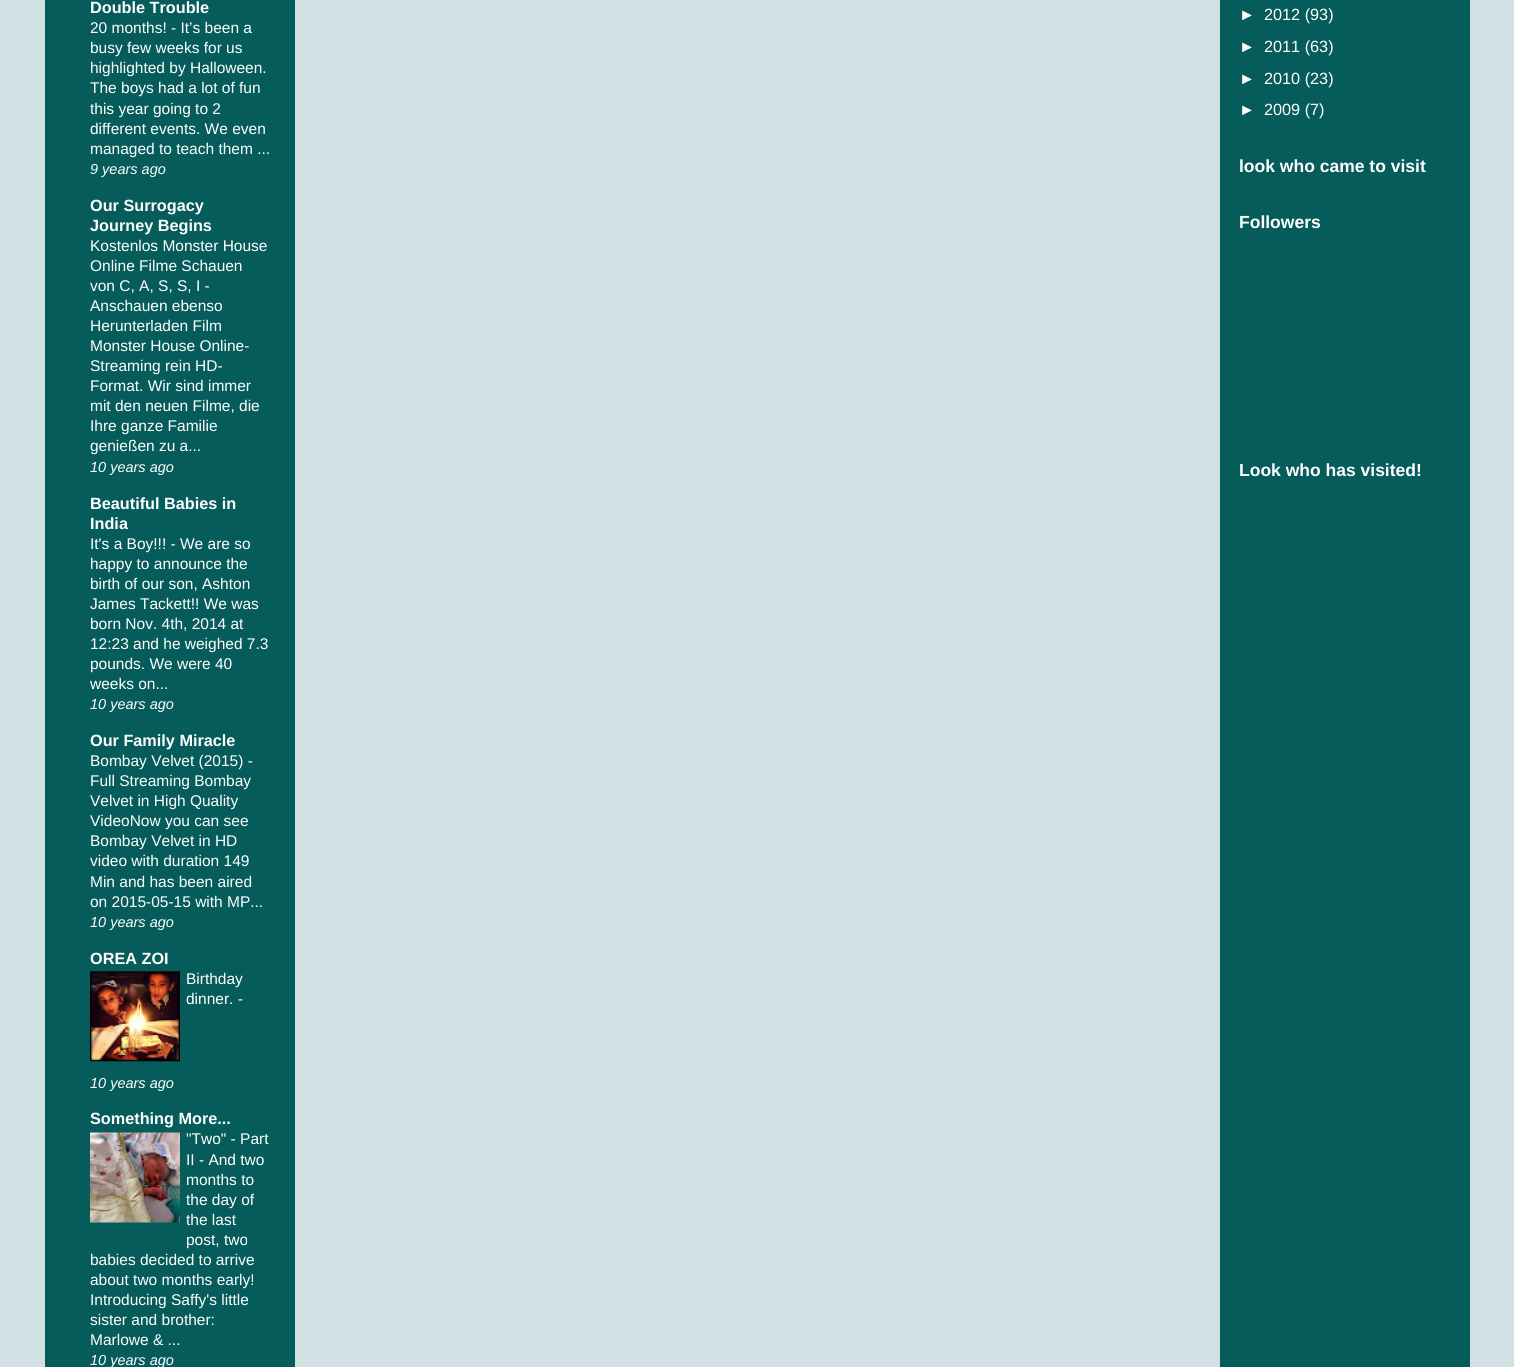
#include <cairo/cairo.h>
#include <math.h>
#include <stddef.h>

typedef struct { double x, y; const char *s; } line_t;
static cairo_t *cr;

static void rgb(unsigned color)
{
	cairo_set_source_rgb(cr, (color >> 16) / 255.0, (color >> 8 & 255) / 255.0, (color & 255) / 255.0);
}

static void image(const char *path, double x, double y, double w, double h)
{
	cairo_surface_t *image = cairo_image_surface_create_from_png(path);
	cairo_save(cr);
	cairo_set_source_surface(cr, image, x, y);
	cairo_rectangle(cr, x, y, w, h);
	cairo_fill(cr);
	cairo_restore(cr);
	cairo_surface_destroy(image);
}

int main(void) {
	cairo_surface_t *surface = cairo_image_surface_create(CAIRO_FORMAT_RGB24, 1514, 1367);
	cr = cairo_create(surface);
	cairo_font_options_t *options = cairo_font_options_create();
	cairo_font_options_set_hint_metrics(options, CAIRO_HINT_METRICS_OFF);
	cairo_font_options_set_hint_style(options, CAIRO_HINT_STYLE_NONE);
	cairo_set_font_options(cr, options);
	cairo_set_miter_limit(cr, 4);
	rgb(0xd0e0e3);
	cairo_paint(cr);
	rgb(0x065c5b);
	cairo_rectangle(cr, 45, 0, 250, 1367);
	cairo_fill(cr);
	cairo_rectangle(cr, 1220, 0, 250, 1367);
	cairo_fill(cr);
	image("img/1.png", 90, 971, 90, 91);
	image("img/2.png", 90, 1132, 90, 91);
	cairo_select_font_face(cr, "Liberation Sans", CAIRO_FONT_SLANT_NORMAL, CAIRO_FONT_WEIGHT_BOLD);
	cairo_set_font_size(cr, 16.25);
	rgb(0xffffff);
	cairo_move_to(cr, 90, 13);
	cairo_show_text(cr, "Double Trouble");
	cairo_select_font_face(cr, "Liberation Sans", CAIRO_FONT_SLANT_NORMAL, CAIRO_FONT_WEIGHT_NORMAL);
	cairo_set_font_size(cr, 15.5);
	{
		static const line_t items[] = {
			{90, 33, "20 months! - It’s been a"},
			{90, 53, "busy few weeks for us"},
			{90, 73, "highlighted by Halloween."},
			{90, 93, "The boys had a lot of fun"},
			{90, 114, "this year going to 2"},
			{90, 134, "different events. We even"},
			{90, 154, "managed to teach them ..."},
		};
		for (size_t i = 0; i < sizeof items / sizeof *items; i++) {
			cairo_move_to(cr, items[i].x, items[i].y);
			cairo_show_text(cr, items[i].s);
		}
	}
	cairo_select_font_face(cr, "Liberation Sans", CAIRO_FONT_SLANT_ITALIC, CAIRO_FONT_WEIGHT_NORMAL);
	cairo_set_font_size(cr, 14.5);
	cairo_move_to(cr, 90, 174);
	cairo_show_text(cr, "9 years ago");
	cairo_select_font_face(cr, "Liberation Sans", CAIRO_FONT_SLANT_NORMAL, CAIRO_FONT_WEIGHT_BOLD);
	cairo_set_font_size(cr, 16.25);
	cairo_move_to(cr, 90, 211);
	cairo_show_text(cr, "Our Surrogacy");
	cairo_move_to(cr, 90, 231);
	cairo_show_text(cr, "Journey Begins");
	cairo_select_font_face(cr, "Liberation Sans", CAIRO_FONT_SLANT_NORMAL, CAIRO_FONT_WEIGHT_NORMAL);
	cairo_set_font_size(cr, 15.5);
	{
		static const line_t items[] = {
			{90, 251, "Kostenlos Monster House"},
			{90, 271, "Online Filme Schauen"},
			{90, 291, "von C, A, S, S, I -"},
			{90, 311, "Anschauen ebenso"},
			{90, 331, "Herunterladen Film"},
			{90, 351, "Monster House Online-"},
			{90, 371, "Streaming rein HD-"},
			{90, 391, "Format. Wir sind immer"},
			{90, 411, "mit den neuen Filme, die"},
			{90, 431, "Ihre ganze Familie"},
			{90, 451, "genießen zu a..."},
		};
		for (size_t i = 0; i < sizeof items / sizeof *items; i++) {
			cairo_move_to(cr, items[i].x, items[i].y);
			cairo_show_text(cr, items[i].s);
		}
	}
	cairo_select_font_face(cr, "Liberation Sans", CAIRO_FONT_SLANT_ITALIC, CAIRO_FONT_WEIGHT_NORMAL);
	cairo_set_font_size(cr, 14.5);
	cairo_move_to(cr, 90, 472);
	cairo_show_text(cr, "10 years ago");
	cairo_select_font_face(cr, "Liberation Sans", CAIRO_FONT_SLANT_NORMAL, CAIRO_FONT_WEIGHT_BOLD);
	cairo_set_font_size(cr, 16.25);
	cairo_move_to(cr, 90, 509);
	cairo_show_text(cr, "Beautiful Babies in");
	cairo_move_to(cr, 90, 529);
	cairo_show_text(cr, "India");
	cairo_select_font_face(cr, "Liberation Sans", CAIRO_FONT_SLANT_NORMAL, CAIRO_FONT_WEIGHT_NORMAL);
	cairo_set_font_size(cr, 15.5);
	{
		static const line_t items[] = {
			{90, 549, "It's a Boy!!! - We are so"},
			{90, 569, "happy to announce the"},
			{90, 589, "birth of our son, Ashton"},
			{90, 609, "James Tackett!! We was"},
			{90, 629, "born Nov. 4th, 2014 at"},
			{90, 649, "12:23 and he weighed 7.3"},
			{90, 669, "pounds. We were 40"},
			{90, 689, "weeks on..."},
		};
		for (size_t i = 0; i < sizeof items / sizeof *items; i++) {
			cairo_move_to(cr, items[i].x, items[i].y);
			cairo_show_text(cr, items[i].s);
		}
	}
	cairo_select_font_face(cr, "Liberation Sans", CAIRO_FONT_SLANT_ITALIC, CAIRO_FONT_WEIGHT_NORMAL);
	cairo_set_font_size(cr, 14.5);
	cairo_move_to(cr, 90, 709);
	cairo_show_text(cr, "10 years ago");
	cairo_select_font_face(cr, "Liberation Sans", CAIRO_FONT_SLANT_NORMAL, CAIRO_FONT_WEIGHT_BOLD);
	cairo_set_font_size(cr, 16.25);
	cairo_move_to(cr, 90, 746);
	cairo_show_text(cr, "Our Family Miracle");
	cairo_select_font_face(cr, "Liberation Sans", CAIRO_FONT_SLANT_NORMAL, CAIRO_FONT_WEIGHT_NORMAL);
	cairo_set_font_size(cr, 15.5);
	{
		static const line_t items[] = {
			{90, 766, "Bombay Velvet (2015) -"},
			{90, 786, "Full Streaming Bombay"},
			{90, 806, "Velvet in High Quality"},
			{90, 826, "VideoNow you can see"},
			{90, 846, "Bombay Velvet in HD"},
			{90, 866, "video with duration 149"},
			{90, 887, "Min and has been aired"},
			{90, 907, "on 2015-05-15 with MP..."},
		};
		for (size_t i = 0; i < sizeof items / sizeof *items; i++) {
			cairo_move_to(cr, items[i].x, items[i].y);
			cairo_show_text(cr, items[i].s);
		}
	}
	cairo_select_font_face(cr, "Liberation Sans", CAIRO_FONT_SLANT_ITALIC, CAIRO_FONT_WEIGHT_NORMAL);
	cairo_set_font_size(cr, 14.5);
	cairo_move_to(cr, 90, 927);
	cairo_show_text(cr, "10 years ago");
	cairo_select_font_face(cr, "Liberation Sans", CAIRO_FONT_SLANT_NORMAL, CAIRO_FONT_WEIGHT_BOLD);
	cairo_set_font_size(cr, 16.25);
	cairo_move_to(cr, 90, 964);
	cairo_show_text(cr, "OREA ZOI");
	cairo_select_font_face(cr, "Liberation Sans", CAIRO_FONT_SLANT_NORMAL, CAIRO_FONT_WEIGHT_NORMAL);
	cairo_set_font_size(cr, 15.5);
	cairo_move_to(cr, 186, 984);
	cairo_show_text(cr, "Birthday");
	cairo_move_to(cr, 186, 1004);
	cairo_show_text(cr, "dinner. -");
	cairo_select_font_face(cr, "Liberation Sans", CAIRO_FONT_SLANT_ITALIC, CAIRO_FONT_WEIGHT_NORMAL);
	cairo_set_font_size(cr, 14.5);
	cairo_move_to(cr, 90, 1088);
	cairo_show_text(cr, "10 years ago");
	cairo_select_font_face(cr, "Liberation Sans", CAIRO_FONT_SLANT_NORMAL, CAIRO_FONT_WEIGHT_BOLD);
	cairo_set_font_size(cr, 16.25);
	cairo_move_to(cr, 90, 1124);
	cairo_show_text(cr, "Something More...");
	cairo_select_font_face(cr, "Liberation Sans", CAIRO_FONT_SLANT_NORMAL, CAIRO_FONT_WEIGHT_NORMAL);
	cairo_set_font_size(cr, 15.5);
	{
		static const line_t items[] = {
			{186, 1144, "\"Two\" - Part"},
			{186, 1165, "II - And two"},
			{186, 1185, "months to"},
			{186, 1205, "the day of"},
			{186, 1225, "the last"},
			{186, 1245, "post, two"},
			{90, 1265, "babies decided to arrive"},
			{90, 1285, "about two months early!"},
			{90, 1305, "Introducing Saffy's little"},
			{90, 1325, "sister and brother:"},
			{90, 1345, "Marlowe & ..."},
		};
		for (size_t i = 0; i < sizeof items / sizeof *items; i++) {
			cairo_move_to(cr, items[i].x, items[i].y);
			cairo_show_text(cr, items[i].s);
		}
	}
	cairo_select_font_face(cr, "Liberation Sans", CAIRO_FONT_SLANT_ITALIC, CAIRO_FONT_WEIGHT_NORMAL);
	cairo_set_font_size(cr, 14.5);
	cairo_move_to(cr, 90, 1365);
	cairo_show_text(cr, "10 years ago");
	cairo_select_font_face(cr, "Liberation Sans", CAIRO_FONT_SLANT_NORMAL, CAIRO_FONT_WEIGHT_NORMAL);
	cairo_set_font_size(cr, 16.25);
	{
		static const line_t items[] = {
			{1239, 20, "►"},
			{1264, 20, "2012 (93)"},
			{1239, 52, "►"},
			{1264, 52, "2011 (63)"},
			{1239, 84, "►"},
			{1264, 84, "2010 (23)"},
			{1239, 115, "►"},
			{1264, 115, "2009 (7)"},
		};
		for (size_t i = 0; i < sizeof items / sizeof *items; i++) {
			cairo_move_to(cr, items[i].x, items[i].y);
			cairo_show_text(cr, items[i].s);
		}
	}
	cairo_select_font_face(cr, "Liberation Sans", CAIRO_FONT_SLANT_NORMAL, CAIRO_FONT_WEIGHT_BOLD);
	cairo_set_font_size(cr, 17.5);
	{
		static const line_t items[] = {
			{1239, 172, "look who came to visit"},
			{1239, 228, "Followers"},
			{1239, 476, "Look who has visited!"},
		};
		for (size_t i = 0; i < sizeof items / sizeof *items; i++) {
			cairo_move_to(cr, items[i].x, items[i].y);
			cairo_show_text(cr, items[i].s);
		}
	}
	cairo_surface_write_to_png(surface, "page.png");
	cairo_font_options_destroy(options);
	cairo_destroy(cr);
	cairo_surface_destroy(surface);
	return 0;
}
